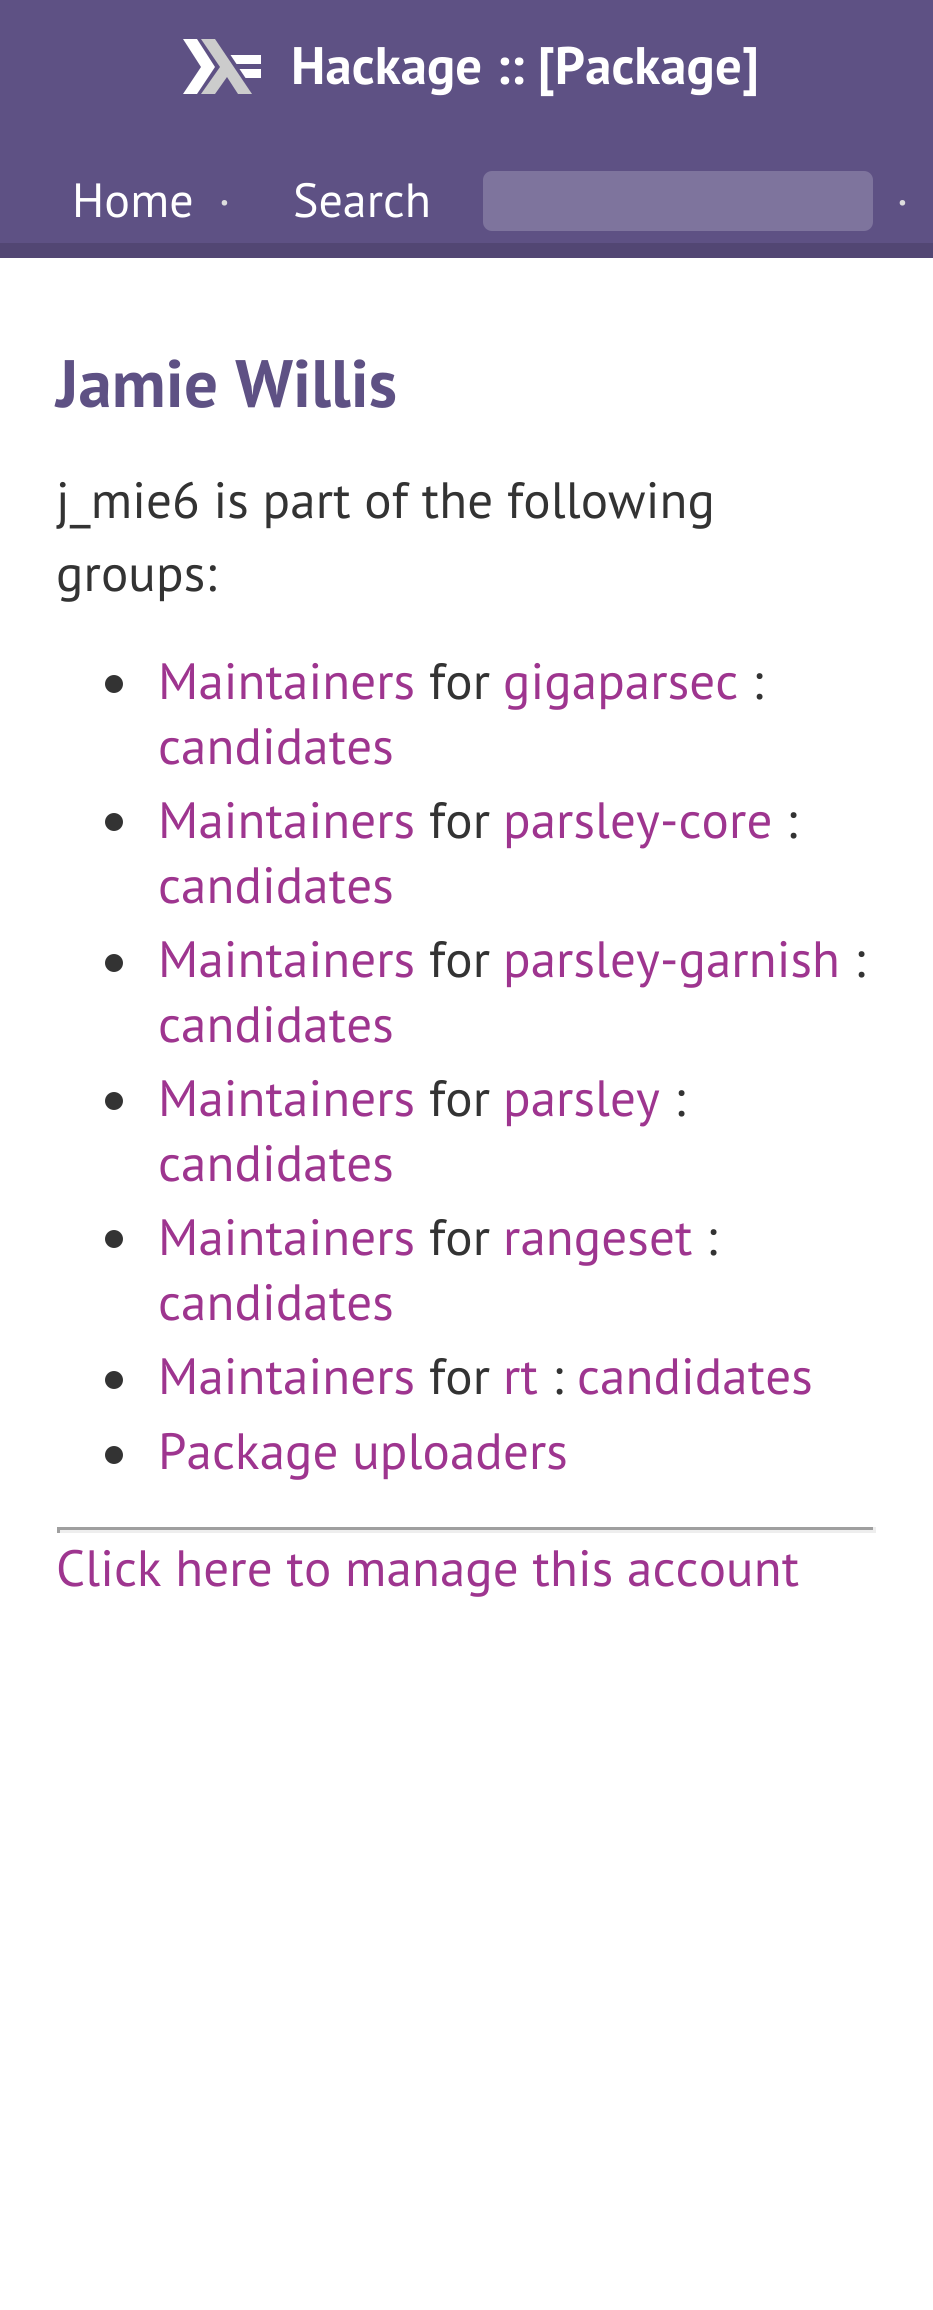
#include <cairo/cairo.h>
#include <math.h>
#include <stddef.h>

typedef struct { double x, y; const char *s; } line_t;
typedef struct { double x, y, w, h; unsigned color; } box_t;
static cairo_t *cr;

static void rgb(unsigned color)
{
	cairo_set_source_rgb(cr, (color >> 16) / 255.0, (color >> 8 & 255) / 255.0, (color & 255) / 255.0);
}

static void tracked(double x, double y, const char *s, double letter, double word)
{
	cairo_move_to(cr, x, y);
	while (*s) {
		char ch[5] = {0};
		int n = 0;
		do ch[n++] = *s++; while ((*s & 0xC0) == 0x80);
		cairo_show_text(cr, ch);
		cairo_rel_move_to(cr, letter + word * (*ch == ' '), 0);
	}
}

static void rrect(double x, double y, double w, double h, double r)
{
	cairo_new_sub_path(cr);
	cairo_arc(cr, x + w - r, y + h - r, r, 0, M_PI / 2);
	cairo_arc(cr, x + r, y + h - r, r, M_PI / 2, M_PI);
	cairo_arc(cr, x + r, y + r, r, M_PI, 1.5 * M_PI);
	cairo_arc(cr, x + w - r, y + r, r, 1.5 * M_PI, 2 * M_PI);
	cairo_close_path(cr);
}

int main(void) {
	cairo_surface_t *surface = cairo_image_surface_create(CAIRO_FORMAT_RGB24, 933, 2310);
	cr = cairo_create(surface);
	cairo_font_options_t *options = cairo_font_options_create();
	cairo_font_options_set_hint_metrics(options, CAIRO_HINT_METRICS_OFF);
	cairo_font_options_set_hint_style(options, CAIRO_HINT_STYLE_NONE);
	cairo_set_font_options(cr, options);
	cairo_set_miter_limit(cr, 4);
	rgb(0xffffff);
	cairo_paint(cr);
	rgb(0x5e5184);
	cairo_rectangle(cr, 0, 0, 933, 243);
	cairo_fill(cr);
	rgb(0x524673);
	cairo_rectangle(cr, 0, 243, 933, 15);
	cairo_fill(cr);
	rgb(0xffffff);
	cairo_new_path(cr);
	cairo_move_to(cr, 183, 94);
	cairo_line_to(cr, 201, 67);
	cairo_line_to(cr, 183, 39);
	cairo_line_to(cr, 197, 39);
	cairo_line_to(cr, 215, 67);
	cairo_line_to(cr, 197, 94);
	cairo_close_path(cr);
	cairo_fill(cr);
	rgb(0xcccccc);
	cairo_new_path(cr);
	cairo_move_to(cr, 201, 94);
	cairo_line_to(cr, 220, 67);
	cairo_line_to(cr, 201, 39);
	cairo_line_to(cr, 215, 39);
	cairo_line_to(cr, 252, 94);
	cairo_line_to(cr, 238, 94);
	cairo_line_to(cr, 227, 77);
	cairo_line_to(cr, 215, 94);
	cairo_close_path(cr);
	cairo_fill(cr);
	rgb(0xffffff);
	cairo_new_path(cr);
	cairo_move_to(cr, 245.5, 78);
	cairo_line_to(cr, 239.5, 69);
	cairo_line_to(cr, 261, 69);
	cairo_line_to(cr, 261, 78);
	cairo_close_path(cr);
	cairo_move_to(cr, 236.5, 64);
	cairo_line_to(cr, 230.5, 55);
	cairo_line_to(cr, 261, 55);
	cairo_line_to(cr, 261, 64);
	cairo_close_path(cr);
	cairo_fill(cr);
	rgb(0x7e749d);
	rrect(483, 171, 390, 60, 9);
	cairo_fill(cr);
	rgb(0x333333);
	cairo_arc(cr, 114, 684, 9, 0, 2 * M_PI);
	cairo_fill(cr);
	cairo_arc(cr, 114, 822, 9, 0, 2 * M_PI);
	cairo_fill(cr);
	cairo_arc(cr, 114, 963, 9, 0, 2 * M_PI);
	cairo_fill(cr);
	cairo_arc(cr, 114, 1101, 9, 0, 2 * M_PI);
	cairo_fill(cr);
	cairo_arc(cr, 114, 1239, 9, 0, 2 * M_PI);
	cairo_fill(cr);
	cairo_arc(cr, 114, 1380, 9, 0, 2 * M_PI);
	cairo_fill(cr);
	cairo_arc(cr, 114, 1455, 9, 0, 2 * M_PI);
	cairo_fill(cr);
	{
		static const box_t items[] = {
			{57, 1527, 819, 3, 0x9f9f9f},
			{873, 1527, 3, 6, 0xeeeeee},
			{57, 1530, 819, 3, 0xeeeeee},
			{57, 1527, 3, 6, 0x9f9f9f},
		};
		for (size_t i = 0; i < sizeof items / sizeof *items; i++) {
			rgb(items[i].color);
			cairo_rectangle(cr, items[i].x, items[i].y, items[i].w, items[i].h);
			cairo_fill(cr);
		}
	}
	cairo_select_font_face(cr, "PT Sans", CAIRO_FONT_SLANT_NORMAL, CAIRO_FONT_WEIGHT_BOLD);
	cairo_set_font_size(cr, 52.75);
	rgb(0xffffff);
	tracked(291, 84, "Hackage :: [Package]", 0.1, 0);
	cairo_select_font_face(cr, "PT Sans", CAIRO_FONT_SLANT_NORMAL, CAIRO_FONT_WEIGHT_NORMAL);
	cairo_set_font_size(cr, 48);
	tracked(72, 217, "Home", 0.1, 0);
	rgb(0xdddddd);
	tracked(218, 217, "·", 0.1, 0);
	rgb(0xffffff);
	cairo_move_to(cr, 293, 217);
	cairo_show_text(cr, "Search");
	rgb(0xdddddd);
	tracked(896, 217, "·", 0.1, 0);
	cairo_select_font_face(cr, "PT Sans", CAIRO_FONT_SLANT_NORMAL, CAIRO_FONT_WEIGHT_BOLD);
	cairo_set_font_size(cr, 67);
	rgb(0x5e5184);
	tracked(56, 407, "Jamie Willis", 0.1, 0);
	cairo_select_font_face(cr, "PT Sans", CAIRO_FONT_SLANT_NORMAL, CAIRO_FONT_WEIGHT_NORMAL);
	cairo_set_font_size(cr, 51);
	rgb(0x333333);
	tracked(56, 518, "j_mie6 is part of the following", 0.1, 0);
	tracked(56, 591, "groups:", 0.1, 0);
	rgb(0x9e358f);
	tracked(158, 699, "Maintainers", 0.1, 0);
	rgb(0x333333);
	tracked(429, 699, "for", 0.1, 0);
	rgb(0x9e358f);
	tracked(503, 699, "gigaparsec", 0.1, 0);
	rgb(0x333333);
	tracked(752, 699, ":", 0.1, 0);
	rgb(0x9e358f);
	tracked(158, 764, "candidates", 0.1, 0);
	tracked(158, 838, "Maintainers", 0.1, 0);
	rgb(0x333333);
	tracked(429, 838, "for", 0.1, 0);
	rgb(0x9e358f);
	tracked(503, 838, "parsley-core", 0.1, 0);
	rgb(0x333333);
	tracked(786, 838, ":", 0.1, 0);
	rgb(0x9e358f);
	tracked(158, 903, "candidates", 0.1, 0);
	tracked(158, 977, "Maintainers", 0.1, 0);
	rgb(0x333333);
	tracked(429, 977, "for", 0.1, 0);
	rgb(0x9e358f);
	tracked(503, 977, "parsley-garnish", 0.1, 0);
	rgb(0x333333);
	tracked(854, 977, ":", 0.1, 0);
	rgb(0x9e358f);
	tracked(158, 1042, "candidates", 0.1, 0);
	tracked(158, 1116, "Maintainers", 0.1, 0);
	rgb(0x333333);
	tracked(429, 1116, "for", 0.1, 0);
	rgb(0x9e358f);
	tracked(503, 1116, "parsley", 0.1, 0);
	rgb(0x333333);
	tracked(674, 1116, ":", 0.1, 0);
	rgb(0x9e358f);
	tracked(158, 1181, "candidates", 0.1, 0);
	tracked(158, 1255, "Maintainers", 0.1, 0);
	rgb(0x333333);
	tracked(429, 1255, "for", 0.1, 0);
	rgb(0x9e358f);
	tracked(503, 1255, "rangeset", 0.1, 0);
	rgb(0x333333);
	tracked(706, 1255, ":", 0.1, 0);
	rgb(0x9e358f);
	tracked(158, 1320, "candidates", 0.1, 0);
	tracked(158, 1394, "Maintainers", 0.1, 0);
	rgb(0x333333);
	tracked(429, 1394, "for", 0.1, 0);
	rgb(0x9e358f);
	tracked(503, 1394, "rt", 0.1, 0);
	rgb(0x333333);
	tracked(552, 1394, ":", 0.1, 0);
	rgb(0x9e358f);
	{
		static const line_t items[] = {
			{577, 1394, "candidates"},
			{158, 1469, "Package uploaders"},
			{56, 1586, "Click here to manage this account"},
		};
		for (size_t i = 0; i < sizeof items / sizeof *items; i++) {
			tracked(items[i].x, items[i].y, items[i].s, 0.1, 0);
		}
	}
	cairo_surface_write_to_png(surface, "page.png");
	cairo_font_options_destroy(options);
	cairo_destroy(cr);
	cairo_surface_destroy(surface);
	return 0;
}
